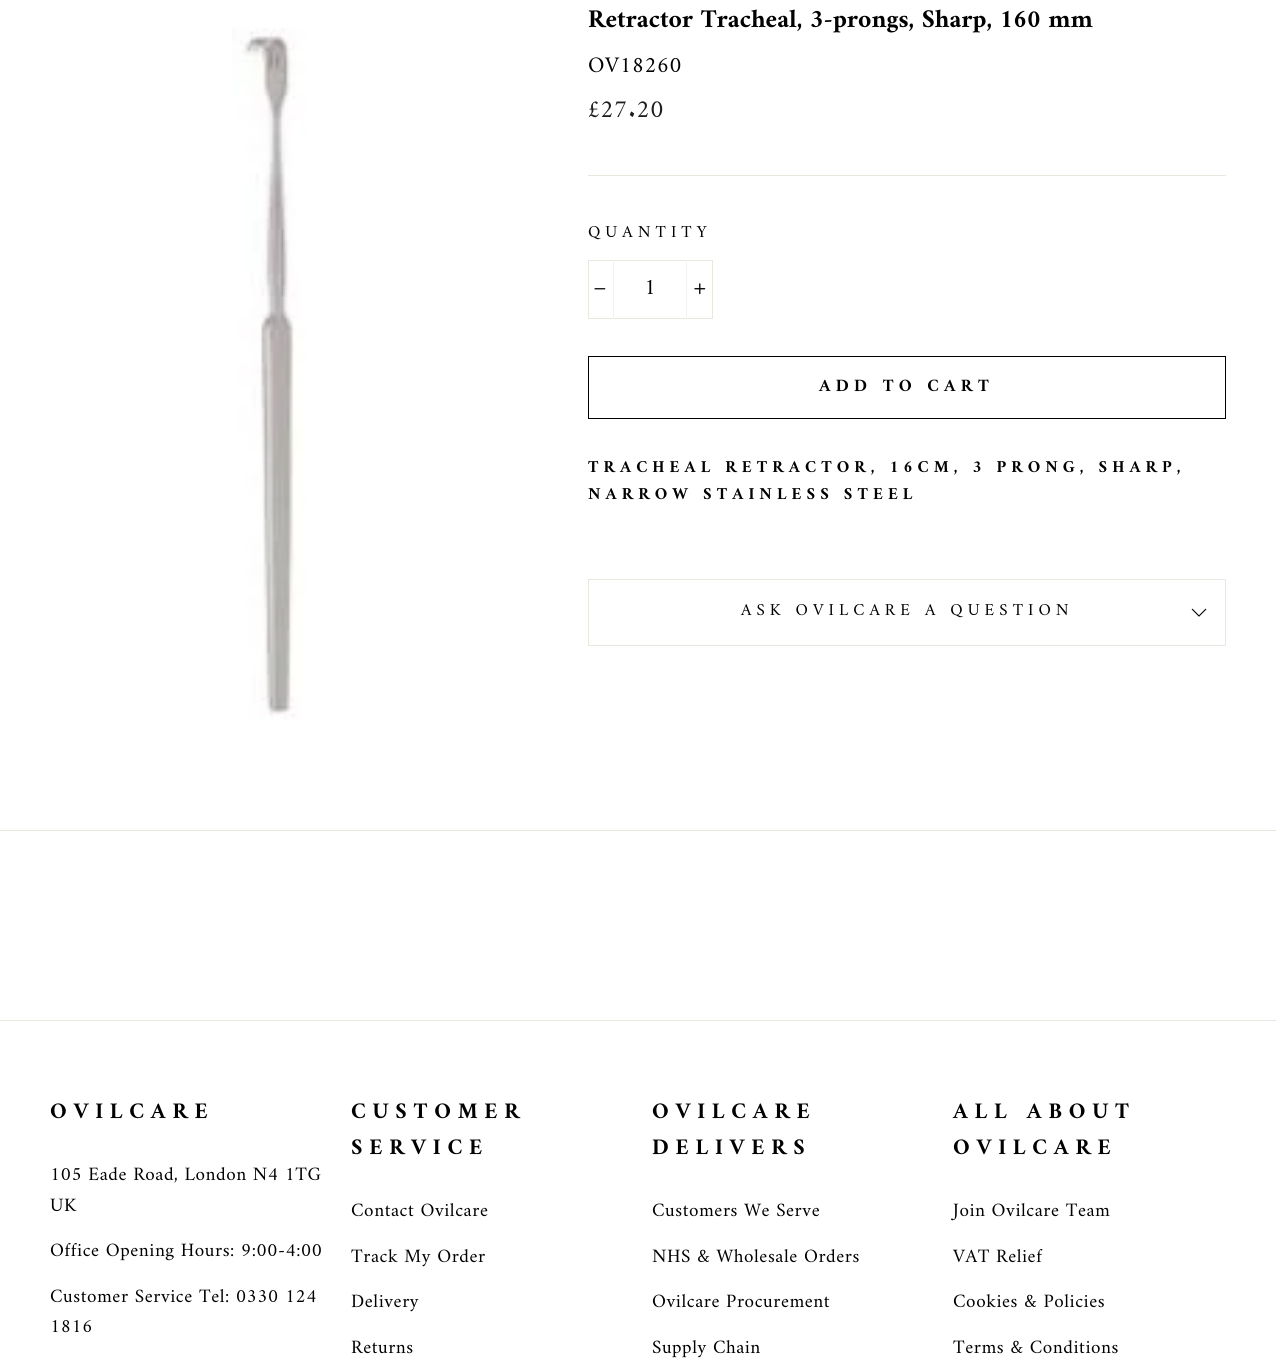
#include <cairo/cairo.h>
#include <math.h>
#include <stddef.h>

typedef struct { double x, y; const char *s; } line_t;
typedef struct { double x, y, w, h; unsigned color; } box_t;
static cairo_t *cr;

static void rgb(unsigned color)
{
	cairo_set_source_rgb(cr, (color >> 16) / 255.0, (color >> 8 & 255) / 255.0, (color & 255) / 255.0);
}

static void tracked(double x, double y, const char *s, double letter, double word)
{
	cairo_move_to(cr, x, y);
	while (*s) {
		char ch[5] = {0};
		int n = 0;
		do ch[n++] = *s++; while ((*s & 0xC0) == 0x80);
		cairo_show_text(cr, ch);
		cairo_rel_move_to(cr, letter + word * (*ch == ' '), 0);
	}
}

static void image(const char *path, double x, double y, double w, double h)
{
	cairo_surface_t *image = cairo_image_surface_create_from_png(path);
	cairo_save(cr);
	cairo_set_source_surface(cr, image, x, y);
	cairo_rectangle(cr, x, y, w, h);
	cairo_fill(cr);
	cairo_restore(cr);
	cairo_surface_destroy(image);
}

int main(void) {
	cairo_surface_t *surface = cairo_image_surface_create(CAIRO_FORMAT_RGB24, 1276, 1359);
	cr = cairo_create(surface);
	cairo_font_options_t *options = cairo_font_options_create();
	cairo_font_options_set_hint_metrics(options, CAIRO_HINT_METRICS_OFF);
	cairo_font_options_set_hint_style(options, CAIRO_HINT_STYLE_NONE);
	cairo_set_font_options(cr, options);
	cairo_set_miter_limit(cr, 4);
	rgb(0xffffff);
	cairo_paint(cr);
	image("img/1.png", 232, 28, 74, 692);
	rgb(0xe8e8e1);
	cairo_rectangle(cr, 588, 175, 638, 1);
	cairo_fill(cr);
	cairo_rectangle(cr, 588.5, 260.5, 124, 58);
	cairo_set_line_width(cr, 1);
	cairo_stroke(cr);
	rgb(0xf2f2f2);
	cairo_rectangle(cr, 613, 260, 1, 59);
	cairo_fill(cr);
	image("img/2.png", 594, 288, 12, 2);
	cairo_rectangle(cr, 686, 260, 1, 59);
	cairo_fill(cr);
	image("img/3.png", 694, 283, 12, 12);
	cairo_rectangle(cr, 588.5, 356.5, 637, 62);
	rgb(0x000000);
	cairo_stroke(cr);
	{
		static const box_t items[] = {
			{588, 645, 638, 1, 0xe8e8e1},
			{588, 579, 638, 1, 0xe8e8e1},
			{1225, 579, 1, 66, 0xe8e8e1},
			{588, 579, 1, 66, 0xe8e8e1},
		};
		for (size_t i = 0; i < sizeof items / sizeof *items; i++) {
			rgb(items[i].color);
			cairo_rectangle(cr, items[i].x, items[i].y, items[i].w, items[i].h);
			cairo_fill(cr);
		}
	}
	cairo_new_path(cr);
	cairo_move_to(cr, 1192, 609);
	cairo_line_to(cr, 1199, 616);
	cairo_line_to(cr, 1206, 609);
	rgb(0x000000);
	cairo_set_line_width(cr, 1.1);
	cairo_stroke(cr);
	rgb(0xe8e8e1);
	cairo_rectangle(cr, 0, 830, 1276, 1);
	cairo_fill(cr);
	cairo_rectangle(cr, 0, 1020, 1276, 1);
	cairo_fill(cr);
	cairo_select_font_face(cr, "Amiri", CAIRO_FONT_SLANT_NORMAL, CAIRO_FONT_WEIGHT_BOLD);
	cairo_set_font_size(cr, 25.75);
	rgb(0x000000);
	cairo_move_to(cr, 588, 27);
	cairo_show_text(cr, "Retractor Tracheal, 3-prongs, Sharp, 160 mm");
	cairo_select_font_face(cr, "Amiri", CAIRO_FONT_SLANT_NORMAL, CAIRO_FONT_WEIGHT_NORMAL);
	cairo_set_font_size(cr, 22.5);
	tracked(588, 72, "OV18260", 0.55, 0);
	cairo_set_font_size(cr, 25);
	rgb(0x1c1d1d);
	tracked(588, 117, "£27.20", 0.55, 0);
	cairo_set_font_size(cr, 16.9);
	rgb(0x000000);
	tracked(588, 237, "QUANTITY", 5.05, 0);
	cairo_set_font_size(cr, 22.5);
	tracked(644, 294, "1", 0.55, 0);
	cairo_select_font_face(cr, "Amiri", CAIRO_FONT_SLANT_NORMAL, CAIRO_FONT_WEIGHT_BOLD);
	cairo_set_font_size(cr, 17.5);
	tracked(819, 391, "ADD TO CART", 5.25, 0);
	cairo_set_font_size(cr, 16.9);
	tracked(588, 472, "TRACHEAL RETRACTOR, 16CM, 3 PRONG, SHARP,", 5.05, 0);
	tracked(588, 499, "NARROW STAINLESS STEEL", 5.05, 0);
	cairo_select_font_face(cr, "Amiri", CAIRO_FONT_SLANT_NORMAL, CAIRO_FONT_WEIGHT_NORMAL);
	tracked(741, 615, "ASK OVILCARE A QUESTION", 5.05, 0);
	cairo_select_font_face(cr, "Amiri", CAIRO_FONT_SLANT_NORMAL, CAIRO_FONT_WEIGHT_BOLD);
	cairo_set_font_size(cr, 22.5);
	tracked(50, 1118, "OVILCARE", 6.75, 0);
	cairo_select_font_face(cr, "Amiri", CAIRO_FONT_SLANT_NORMAL, CAIRO_FONT_WEIGHT_NORMAL);
	cairo_set_font_size(cr, 19.1);
	{
		static const line_t items[] = {
			{50, 1180, "105 Eade Road, London N4 1TG"},
			{50, 1211, "UK"},
			{50, 1256, "Office Opening Hours: 9:00-4:00"},
			{50, 1302, "Customer Service Tel: 0330 124"},
			{50, 1332, "1816"},
		};
		for (size_t i = 0; i < sizeof items / sizeof *items; i++) {
			tracked(items[i].x, items[i].y, items[i].s, 0.55, 0);
		}
	}
	cairo_select_font_face(cr, "Amiri", CAIRO_FONT_SLANT_NORMAL, CAIRO_FONT_WEIGHT_BOLD);
	cairo_set_font_size(cr, 22.5);
	tracked(351, 1118, "CUSTOMER", 6.75, 0);
	tracked(351, 1154, "SERVICE", 6.75, 0);
	cairo_select_font_face(cr, "Amiri", CAIRO_FONT_SLANT_NORMAL, CAIRO_FONT_WEIGHT_NORMAL);
	cairo_set_font_size(cr, 19.1);
	{
		static const line_t items[] = {
			{351, 1216, "Contact Ovilcare"},
			{351, 1262, "Track My Order"},
			{351, 1307, "Delivery"},
			{351, 1353, "Returns"},
		};
		for (size_t i = 0; i < sizeof items / sizeof *items; i++) {
			tracked(items[i].x, items[i].y, items[i].s, 0.55, 0);
		}
	}
	cairo_select_font_face(cr, "Amiri", CAIRO_FONT_SLANT_NORMAL, CAIRO_FONT_WEIGHT_BOLD);
	cairo_set_font_size(cr, 22.5);
	tracked(652, 1118, "OVILCARE", 6.75, 0);
	tracked(652, 1154, "DELIVERS", 6.75, 0);
	cairo_select_font_face(cr, "Amiri", CAIRO_FONT_SLANT_NORMAL, CAIRO_FONT_WEIGHT_NORMAL);
	cairo_set_font_size(cr, 19.1);
	{
		static const line_t items[] = {
			{652, 1216, "Customers We Serve"},
			{652, 1262, "NHS & Wholesale Orders"},
			{652, 1307, "Ovilcare Procurement"},
			{652, 1353, "Supply Chain"},
		};
		for (size_t i = 0; i < sizeof items / sizeof *items; i++) {
			tracked(items[i].x, items[i].y, items[i].s, 0.55, 0);
		}
	}
	cairo_select_font_face(cr, "Amiri", CAIRO_FONT_SLANT_NORMAL, CAIRO_FONT_WEIGHT_BOLD);
	cairo_set_font_size(cr, 22.5);
	tracked(953, 1118, "ALL ABOUT", 6.75, 0);
	tracked(953, 1154, "OVILCARE", 6.75, 0);
	cairo_select_font_face(cr, "Amiri", CAIRO_FONT_SLANT_NORMAL, CAIRO_FONT_WEIGHT_NORMAL);
	cairo_set_font_size(cr, 19.1);
	{
		static const line_t items[] = {
			{953, 1216, "Join Ovilcare Team"},
			{953, 1262, "VAT Relief"},
			{953, 1307, "Cookies & Policies"},
			{953, 1353, "Terms & Conditions"},
		};
		for (size_t i = 0; i < sizeof items / sizeof *items; i++) {
			tracked(items[i].x, items[i].y, items[i].s, 0.55, 0);
		}
	}
	cairo_surface_write_to_png(surface, "page.png");
	cairo_font_options_destroy(options);
	cairo_destroy(cr);
	cairo_surface_destroy(surface);
	return 0;
}
